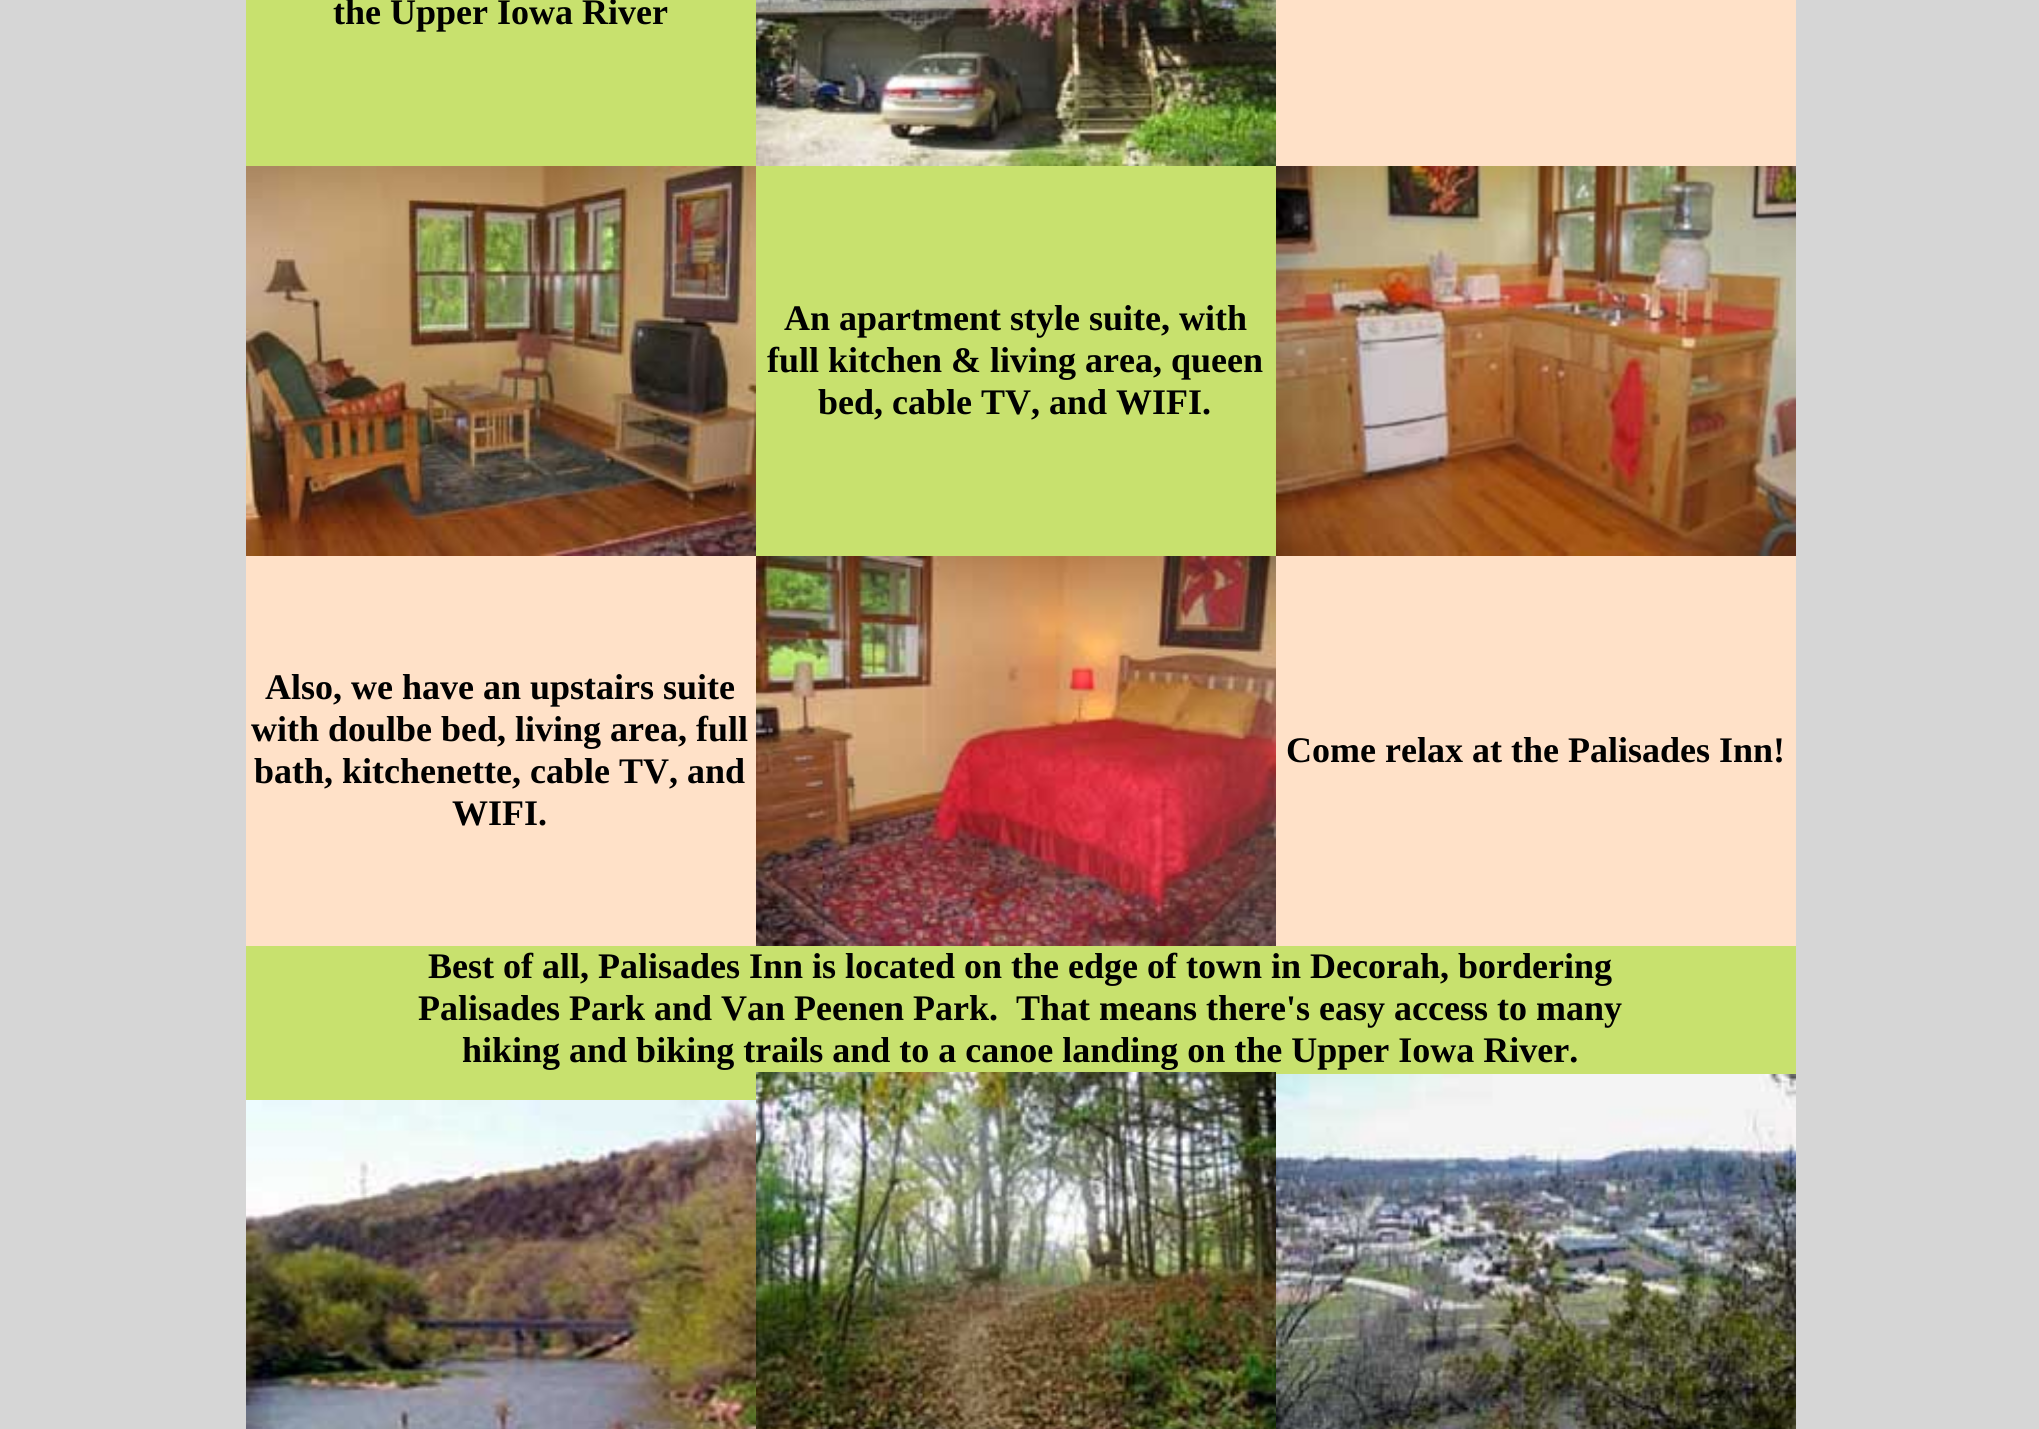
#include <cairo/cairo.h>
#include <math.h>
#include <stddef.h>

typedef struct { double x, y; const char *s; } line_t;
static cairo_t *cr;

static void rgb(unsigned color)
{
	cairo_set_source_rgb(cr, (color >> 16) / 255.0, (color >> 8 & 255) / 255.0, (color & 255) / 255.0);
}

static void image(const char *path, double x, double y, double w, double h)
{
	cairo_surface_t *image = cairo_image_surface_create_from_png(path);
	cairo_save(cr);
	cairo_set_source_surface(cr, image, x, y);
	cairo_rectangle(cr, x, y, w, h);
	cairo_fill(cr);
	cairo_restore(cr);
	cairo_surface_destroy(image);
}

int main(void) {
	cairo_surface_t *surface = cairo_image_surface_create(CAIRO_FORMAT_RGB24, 2039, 1429);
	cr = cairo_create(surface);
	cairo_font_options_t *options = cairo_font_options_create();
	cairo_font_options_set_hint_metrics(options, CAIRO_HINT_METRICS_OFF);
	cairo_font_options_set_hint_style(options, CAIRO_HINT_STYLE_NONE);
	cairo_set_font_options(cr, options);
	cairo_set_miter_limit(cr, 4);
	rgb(0xd6d6d6);
	cairo_paint(cr);
	rgb(0xc8e16e);
	cairo_rectangle(cr, 246, 0, 510, 166);
	cairo_fill(cr);
	image("img/1.png", 756, 0, 520, 166);
	rgb(0xffe1c8);
	cairo_rectangle(cr, 1276, 0, 520, 166);
	cairo_fill(cr);
	image("img/2.png", 246, 166, 510, 390);
	rgb(0xc8e16e);
	cairo_rectangle(cr, 756, 166, 520, 390);
	cairo_fill(cr);
	image("img/3.png", 1276, 166, 520, 390);
	rgb(0xffe1c8);
	cairo_rectangle(cr, 246, 556, 510, 390);
	cairo_fill(cr);
	image("img/4.png", 756, 556, 520, 390);
	cairo_rectangle(cr, 1276, 556, 520, 390);
	cairo_fill(cr);
	rgb(0xc8e16e);
	cairo_rectangle(cr, 246, 946, 1550, 154);
	cairo_fill(cr);
	image("img/5.png", 246, 1100, 510, 329);
	image("img/6.png", 756, 1072, 520, 357);
	image("img/7.png", 1276, 1074, 520, 355);
	cairo_select_font_face(cr, "Liberation Serif", CAIRO_FONT_SLANT_NORMAL, CAIRO_FONT_WEIGHT_BOLD);
	cairo_set_font_size(cr, 36);
	rgb(0x000000);
	{
		static const line_t items[] = {
			{333, 24, "the Upper Iowa River"},
			{784, 330, "An apartment style suite, with"},
			{767, 372, "full kitchen & living area, queen"},
			{818, 414, "bed, cable TV, and WIFI."},
			{265, 699, "Also, we have an upstairs suite"},
			{251, 741, "with doulbe bed, living area, full"},
			{254, 783, "bath, kitchenette, cable TV, and"},
			{452, 825, "WIFI."},
			{1286, 762, "Come relax at the Palisades Inn!"},
			{428, 978, "Best of all, Palisades Inn is located on the edge of town in Decorah, bordering"},
			{418, 1020, "Palisades Park and Van Peenen Park.  That means there's easy access to many"},
			{462, 1062, "hiking and biking trails and to a canoe landing on the Upper Iowa River."},
		};
		for (size_t i = 0; i < sizeof items / sizeof *items; i++) {
			cairo_move_to(cr, items[i].x, items[i].y);
			cairo_show_text(cr, items[i].s);
		}
	}
	cairo_surface_write_to_png(surface, "page.png");
	cairo_font_options_destroy(options);
	cairo_destroy(cr);
	cairo_surface_destroy(surface);
	return 0;
}
